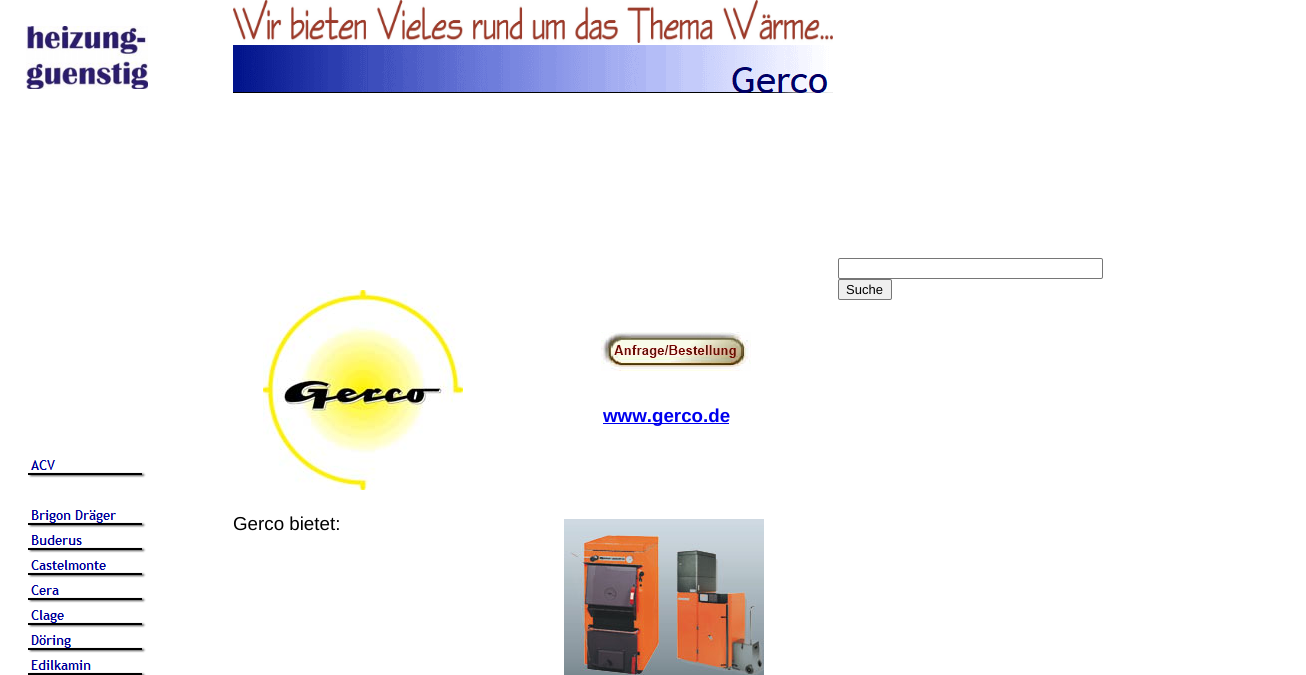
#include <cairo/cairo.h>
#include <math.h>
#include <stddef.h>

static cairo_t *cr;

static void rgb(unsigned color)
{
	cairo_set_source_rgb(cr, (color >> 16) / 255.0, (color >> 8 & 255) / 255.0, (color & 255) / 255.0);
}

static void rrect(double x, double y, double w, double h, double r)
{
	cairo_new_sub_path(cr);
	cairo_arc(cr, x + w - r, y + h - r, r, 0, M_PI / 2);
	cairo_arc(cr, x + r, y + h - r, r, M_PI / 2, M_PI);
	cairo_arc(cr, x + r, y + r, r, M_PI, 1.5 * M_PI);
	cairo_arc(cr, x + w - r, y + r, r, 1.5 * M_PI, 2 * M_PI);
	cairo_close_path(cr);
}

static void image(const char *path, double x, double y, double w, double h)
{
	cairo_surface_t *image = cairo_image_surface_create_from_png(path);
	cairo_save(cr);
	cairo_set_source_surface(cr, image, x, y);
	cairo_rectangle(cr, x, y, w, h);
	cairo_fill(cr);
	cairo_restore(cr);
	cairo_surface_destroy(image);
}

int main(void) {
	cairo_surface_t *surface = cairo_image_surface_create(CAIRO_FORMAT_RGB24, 1306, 675);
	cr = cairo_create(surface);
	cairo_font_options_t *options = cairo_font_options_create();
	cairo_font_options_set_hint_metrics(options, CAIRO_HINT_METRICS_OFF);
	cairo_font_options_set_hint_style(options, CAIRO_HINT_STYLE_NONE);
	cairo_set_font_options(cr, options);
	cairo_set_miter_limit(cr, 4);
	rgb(0xffffff);
	cairo_paint(cr);
	image("img/1.png", 26, 26, 122, 63);
	image("img/2.png", 28, 460, 118, 18);
	image("img/3.png", 28, 510, 118, 18);
	image("img/4.png", 28, 535, 118, 18);
	image("img/5.png", 28, 560, 118, 18);
	image("img/6.png", 28, 585, 118, 18);
	image("img/7.png", 28, 610, 118, 18);
	image("img/8.png", 28, 635, 118, 18);
	image("img/9.png", 28, 660, 118, 15);
	rrect(838.5, 258.5, 264, 20, 1.5);
	rgb(0x767676);
	cairo_set_line_width(cr, 1);
	cairo_stroke(cr);
	rgb(0xefefef);
	rrect(838.5, 279.5, 53, 20, 1.5);
	cairo_fill_preserve(cr);
	rgb(0x767676);
	cairo_stroke(cr);
	image("img/10.png", 233, 0, 600, 43);
	image("img/11.png", 233, 45, 600, 48);
	image("img/12.png", 601, 332, 150, 39);
	rgb(0x0000ee);
	cairo_rectangle(cr, 603, 423, 126, 1);
	cairo_fill(cr);
	image("img/13.png", 564, 519, 200, 156);
	image("img/14.png", 263, 290, 200, 200);
	cairo_select_font_face(cr, "Liberation Sans", CAIRO_FONT_SLANT_NORMAL, CAIRO_FONT_WEIGHT_NORMAL);
	cairo_set_font_size(cr, 13);
	rgb(0x000000);
	cairo_move_to(cr, 846, 294);
	cairo_show_text(cr, "Suche");
	cairo_select_font_face(cr, "Liberation Sans", CAIRO_FONT_SLANT_NORMAL, CAIRO_FONT_WEIGHT_BOLD);
	cairo_set_font_size(cr, 18.75);
	rgb(0x0000ee);
	cairo_move_to(cr, 603, 422);
	cairo_show_text(cr, "www.gerco.de");
	cairo_select_font_face(cr, "Liberation Sans", CAIRO_FONT_SLANT_NORMAL, CAIRO_FONT_WEIGHT_NORMAL);
	rgb(0x000000);
	cairo_move_to(cr, 233, 530);
	cairo_show_text(cr, "Gerco bietet:");
	cairo_surface_write_to_png(surface, "page.png");
	cairo_font_options_destroy(options);
	cairo_destroy(cr);
	cairo_surface_destroy(surface);
	return 0;
}
